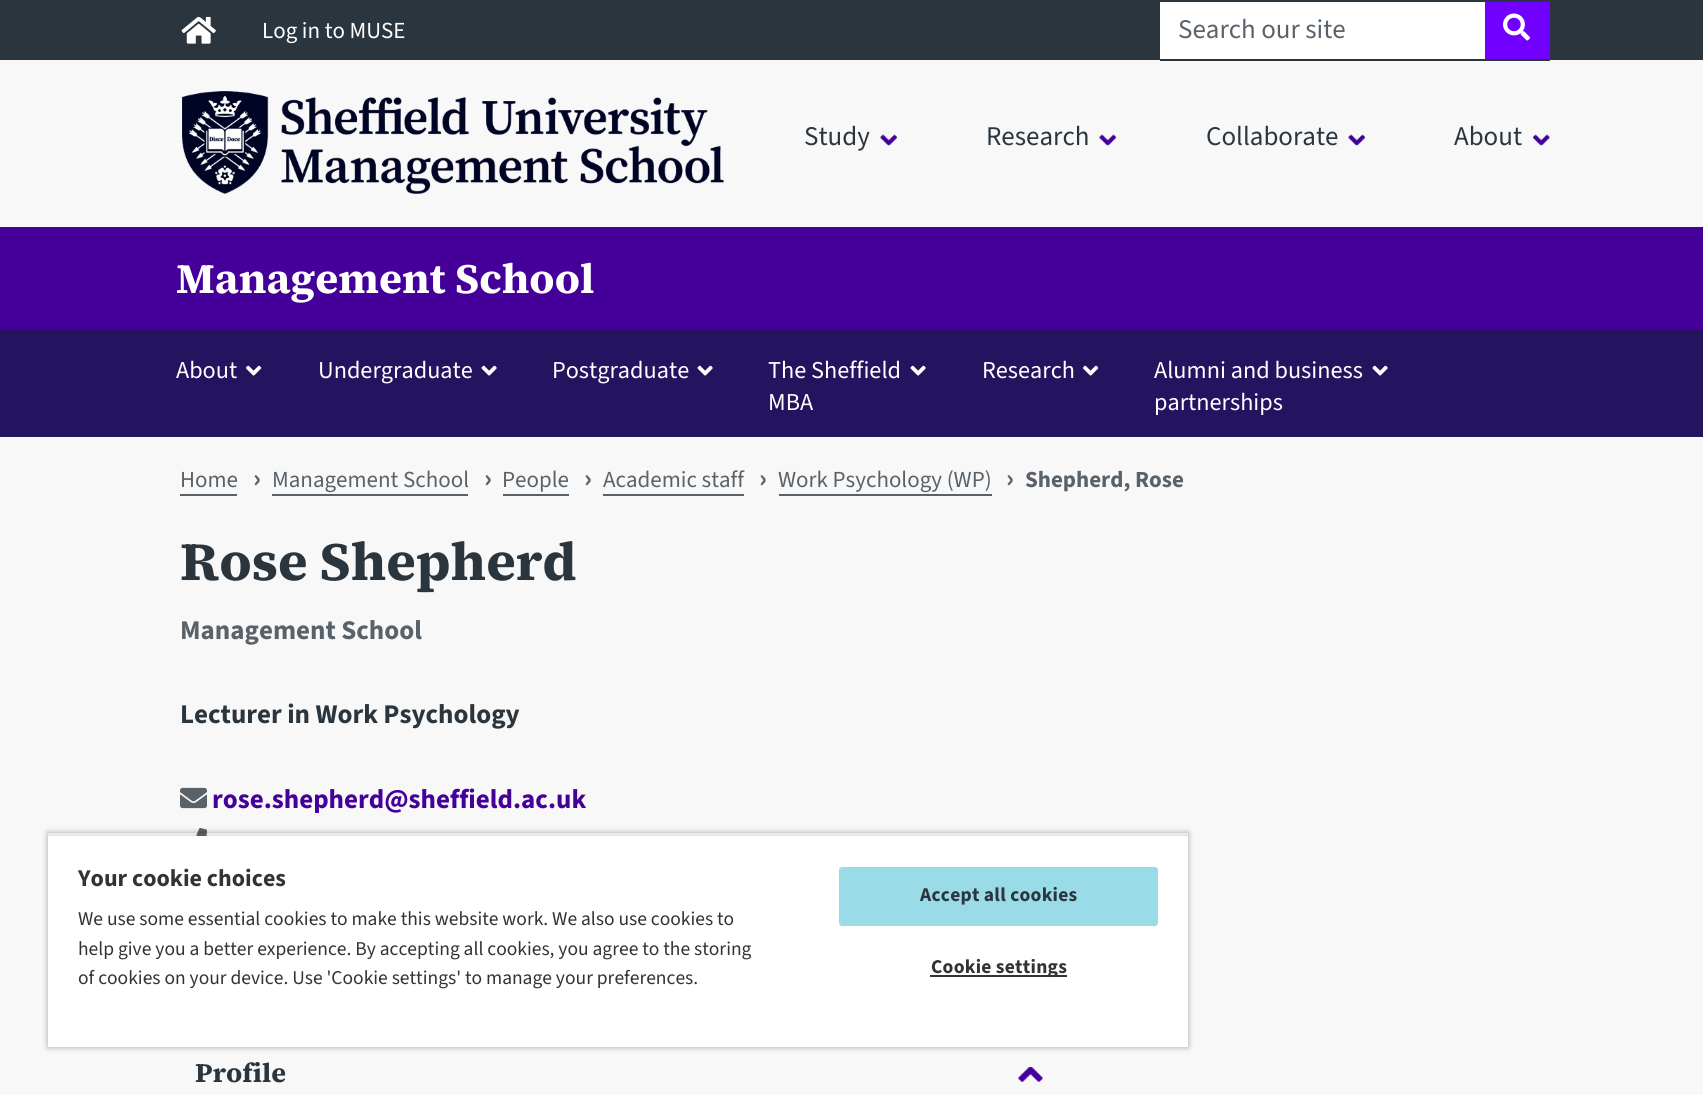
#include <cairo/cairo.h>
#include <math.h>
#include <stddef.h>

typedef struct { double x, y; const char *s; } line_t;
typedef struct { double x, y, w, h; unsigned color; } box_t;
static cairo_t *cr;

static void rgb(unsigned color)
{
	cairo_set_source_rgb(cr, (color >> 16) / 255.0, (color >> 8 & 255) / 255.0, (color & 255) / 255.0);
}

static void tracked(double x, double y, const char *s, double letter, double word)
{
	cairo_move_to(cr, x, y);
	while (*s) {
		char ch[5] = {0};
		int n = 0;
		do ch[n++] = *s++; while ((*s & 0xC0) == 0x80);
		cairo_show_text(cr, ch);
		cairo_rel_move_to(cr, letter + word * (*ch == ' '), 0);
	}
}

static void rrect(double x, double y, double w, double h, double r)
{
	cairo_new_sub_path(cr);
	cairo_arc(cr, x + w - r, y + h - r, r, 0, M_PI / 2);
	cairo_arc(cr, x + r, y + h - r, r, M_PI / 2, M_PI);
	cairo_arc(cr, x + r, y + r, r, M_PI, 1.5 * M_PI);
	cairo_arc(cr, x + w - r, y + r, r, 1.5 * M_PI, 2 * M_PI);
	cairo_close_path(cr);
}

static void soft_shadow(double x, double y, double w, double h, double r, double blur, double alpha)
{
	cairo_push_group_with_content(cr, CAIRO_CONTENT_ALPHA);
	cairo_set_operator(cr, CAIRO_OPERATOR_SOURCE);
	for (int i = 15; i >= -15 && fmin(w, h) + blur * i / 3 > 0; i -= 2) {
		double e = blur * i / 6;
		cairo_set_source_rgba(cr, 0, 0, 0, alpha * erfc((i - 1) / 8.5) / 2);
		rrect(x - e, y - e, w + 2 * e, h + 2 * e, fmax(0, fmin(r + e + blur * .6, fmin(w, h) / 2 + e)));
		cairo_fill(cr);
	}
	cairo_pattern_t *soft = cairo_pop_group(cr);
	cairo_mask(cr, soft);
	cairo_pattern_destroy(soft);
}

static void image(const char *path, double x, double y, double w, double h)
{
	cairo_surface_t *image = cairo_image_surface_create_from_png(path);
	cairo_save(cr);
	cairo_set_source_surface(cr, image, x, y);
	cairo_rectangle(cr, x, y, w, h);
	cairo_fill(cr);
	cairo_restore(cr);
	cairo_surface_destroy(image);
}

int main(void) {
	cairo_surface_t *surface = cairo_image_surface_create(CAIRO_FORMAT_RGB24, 1703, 1095);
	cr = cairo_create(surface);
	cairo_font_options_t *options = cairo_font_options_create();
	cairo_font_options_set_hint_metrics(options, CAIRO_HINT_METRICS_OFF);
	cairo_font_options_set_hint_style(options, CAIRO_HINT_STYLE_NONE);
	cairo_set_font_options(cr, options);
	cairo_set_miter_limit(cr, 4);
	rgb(0xf8f8f9);
	cairo_paint(cr);
	rgb(0x2b353e);
	cairo_rectangle(cr, 0, 0, 1703, 60);
	cairo_fill(cr);
	image("img/1.png", 181, 16, 35, 28);
	{
		static const box_t items[] = {
			{1160, 60, 390, 1, 0x2b353e},
			{1160, 2, 325, 57, 0xffffff},
			{1485, 2, 65, 57, 0x7100ff},
		};
		for (size_t i = 0; i < sizeof items / sizeof *items; i++) {
			rgb(items[i].color);
			cairo_rectangle(cr, items[i].x, items[i].y, items[i].w, items[i].h);
			cairo_fill(cr);
		}
	}
	image("img/2.png", 1503, 13, 27, 28);
	image("img/3.png", 182, 91, 542, 103);
	image("img/4.png", 880, 134, 17, 12);
	image("img/4.png", 1099, 134, 17, 12);
	image("img/4.png", 1348, 134, 17, 12);
	image("img/5.png", 1533, 134, 17, 12);
	rgb(0x440099);
	cairo_rectangle(cr, 0, 227, 1703, 103);
	cairo_fill(cr);
	rgb(0x24135f);
	cairo_rectangle(cr, 0, 330, 1703, 107);
	cairo_fill(cr);
	image("img/6.png", 246, 365, 16, 11);
	image("img/7.png", 481, 365, 16, 11);
	image("img/7.png", 697, 365, 16, 11);
	image("img/7.png", 910, 365, 16, 11);
	image("img/6.png", 1083, 365, 16, 11);
	image("img/7.png", 1372, 365, 16, 11);
	{
		static const box_t items[] = {
			{180, 494, 57, 2, 0x5a6269},
			{272, 494, 196, 2, 0x5a6269},
			{503, 494, 66, 2, 0x5a6269},
			{603, 494, 141, 2, 0x5a6269},
			{779, 494, 213, 2, 0x5a6269},
		};
		for (size_t i = 0; i < sizeof items / sizeof *items; i++) {
			rgb(items[i].color);
			cairo_rectangle(cr, items[i].x, items[i].y, items[i].w, items[i].h);
			cairo_fill(cr);
		}
	}
	image("img/8.png", 180, 787, 27, 22);
	image("img/9.png", 196, 828, 11, 8);
	image("img/10.png", 1018, 1067, 25, 15);
	cairo_save(cr);
	cairo_set_fill_rule(cr, CAIRO_FILL_RULE_EVEN_ODD);
	cairo_new_path(cr);
	cairo_move_to(cr, 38, 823);
	cairo_line_to(cr, 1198, 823);
	cairo_line_to(cr, 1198, 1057);
	cairo_line_to(cr, 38, 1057);
	cairo_close_path(cr);
	cairo_move_to(cr, 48, 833);
	cairo_line_to(cr, 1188, 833);
	cairo_line_to(cr, 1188, 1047);
	cairo_line_to(cr, 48, 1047);
	cairo_close_path(cr);
	cairo_clip(cr);
	rgb(0x000000);
	soft_shadow(48, 833, 1140, 214, 0, 3, 0.35);
	cairo_restore(cr);
	cairo_save(cr);
	cairo_rectangle(cr, 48, 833, 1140, 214);
	cairo_clip(cr);
	rgb(0x000000);
	soft_shadow(48, 836, 1140, 211, 0, 3, 0.2);
	cairo_restore(cr);
	rgb(0xffffff);
	cairo_rectangle(cr, 48, 836, 1140, 211);
	cairo_fill(cr);
	rgb(0x9adbe8);
	rrect(840, 868, 317, 57, 2);
	cairo_fill_preserve(cr);
	cairo_stroke(cr);
	rgb(0x333333);
	cairo_rectangle(cr, 930, 975, 137, 2);
	cairo_fill(cr);
	cairo_select_font_face(cr, "Source Sans 3 ExtraLight", CAIRO_FONT_SLANT_NORMAL, CAIRO_FONT_WEIGHT_NORMAL);
	cairo_set_font_size(cr, 23);
	rgb(0xffffff);
	cairo_move_to(cr, 262, 38);
	cairo_show_text(cr, "Log in to MUSE");
	cairo_set_font_size(cr, 27);
	rgb(0x5a6269);
	cairo_move_to(cr, 1178, 38);
	cairo_show_text(cr, "Search our site");
	rgb(0x2b353e);
	{
		static const line_t items[] = {
			{804, 145, "Study"},
			{986, 145, "Research"},
			{1206, 145, "Collaborate"},
			{1454, 145, "About"},
		};
		for (size_t i = 0; i < sizeof items / sizeof *items; i++) {
			cairo_move_to(cr, items[i].x, items[i].y);
			cairo_show_text(cr, items[i].s);
		}
	}
	cairo_select_font_face(cr, "Source Serif 4", CAIRO_FONT_SLANT_NORMAL, CAIRO_FONT_WEIGHT_BOLD);
	cairo_set_font_size(cr, 42);
	rgb(0xffffff);
	cairo_move_to(cr, 176, 293);
	cairo_show_text(cr, "Management School");
	cairo_select_font_face(cr, "Source Sans 3 ExtraLight", CAIRO_FONT_SLANT_NORMAL, CAIRO_FONT_WEIGHT_NORMAL);
	cairo_set_font_size(cr, 24.25);
	{
		static const line_t items[] = {
			{176, 378, "About"},
			{318, 378, "Undergraduate"},
			{552, 378, "Postgraduate"},
			{768, 378, "The Sheffield"},
			{768, 410, "MBA"},
			{982, 378, "Research"},
			{1154, 378, "Alumni and business"},
			{1154, 410, "partnerships"},
		};
		for (size_t i = 0; i < sizeof items / sizeof *items; i++) {
			cairo_move_to(cr, items[i].x, items[i].y);
			cairo_show_text(cr, items[i].s);
		}
	}
	cairo_set_font_size(cr, 23);
	rgb(0x5a6269);
	cairo_move_to(cr, 180, 487);
	cairo_show_text(cr, "Home");
	cairo_select_font_face(cr, "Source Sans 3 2 ExtraLight", CAIRO_FONT_SLANT_NORMAL, CAIRO_FONT_WEIGHT_NORMAL);
	cairo_set_font_size(cr, 27);
	cairo_move_to(cr, 253, 487);
	cairo_show_text(cr, "›");
	cairo_select_font_face(cr, "Source Sans 3 ExtraLight", CAIRO_FONT_SLANT_NORMAL, CAIRO_FONT_WEIGHT_NORMAL);
	cairo_set_font_size(cr, 23);
	cairo_move_to(cr, 272, 487);
	cairo_show_text(cr, "Management School");
	cairo_select_font_face(cr, "Source Sans 3 2 ExtraLight", CAIRO_FONT_SLANT_NORMAL, CAIRO_FONT_WEIGHT_NORMAL);
	cairo_set_font_size(cr, 27);
	cairo_move_to(cr, 484, 487);
	cairo_show_text(cr, "›");
	cairo_select_font_face(cr, "Source Sans 3 ExtraLight", CAIRO_FONT_SLANT_NORMAL, CAIRO_FONT_WEIGHT_NORMAL);
	cairo_set_font_size(cr, 23);
	cairo_move_to(cr, 502, 487);
	cairo_show_text(cr, "People");
	cairo_select_font_face(cr, "Source Sans 3 2 ExtraLight", CAIRO_FONT_SLANT_NORMAL, CAIRO_FONT_WEIGHT_NORMAL);
	cairo_set_font_size(cr, 27);
	cairo_move_to(cr, 584, 487);
	cairo_show_text(cr, "›");
	cairo_select_font_face(cr, "Source Sans 3 ExtraLight", CAIRO_FONT_SLANT_NORMAL, CAIRO_FONT_WEIGHT_NORMAL);
	cairo_set_font_size(cr, 23);
	cairo_move_to(cr, 603, 487);
	cairo_show_text(cr, "Academic staff");
	cairo_select_font_face(cr, "Source Sans 3 2 ExtraLight", CAIRO_FONT_SLANT_NORMAL, CAIRO_FONT_WEIGHT_NORMAL);
	cairo_set_font_size(cr, 27);
	cairo_move_to(cr, 759, 487);
	cairo_show_text(cr, "›");
	cairo_select_font_face(cr, "Source Sans 3 ExtraLight", CAIRO_FONT_SLANT_NORMAL, CAIRO_FONT_WEIGHT_NORMAL);
	cairo_set_font_size(cr, 23);
	cairo_move_to(cr, 778, 487);
	cairo_show_text(cr, "Work Psychology (WP)");
	cairo_select_font_face(cr, "Source Sans 3 2 ExtraLight", CAIRO_FONT_SLANT_NORMAL, CAIRO_FONT_WEIGHT_NORMAL);
	cairo_set_font_size(cr, 27);
	cairo_move_to(cr, 1006, 487);
	cairo_show_text(cr, "›");
	cairo_set_font_size(cr, 23);
	cairo_move_to(cr, 1025, 487);
	cairo_show_text(cr, "Shepherd, Rose");
	cairo_select_font_face(cr, "Source Serif 4", CAIRO_FONT_SLANT_NORMAL, CAIRO_FONT_WEIGHT_BOLD);
	cairo_set_font_size(cr, 54);
	rgb(0x2b353e);
	cairo_move_to(cr, 180, 580);
	cairo_show_text(cr, "Rose Shepherd");
	cairo_select_font_face(cr, "Source Sans 3 2 ExtraLight", CAIRO_FONT_SLANT_NORMAL, CAIRO_FONT_WEIGHT_NORMAL);
	cairo_set_font_size(cr, 27);
	rgb(0x5a6269);
	cairo_move_to(cr, 180, 639);
	cairo_show_text(cr, "Management School");
	rgb(0x2b353e);
	cairo_move_to(cr, 180, 723);
	cairo_show_text(cr, "Lecturer in Work Psychology");
	rgb(0x440099);
	cairo_move_to(cr, 212, 808);
	cairo_show_text(cr, "rose.shepherd@sheffield.ac.uk");
	cairo_select_font_face(cr, "Source Serif 4", CAIRO_FONT_SLANT_NORMAL, CAIRO_FONT_WEIGHT_BOLD);
	rgb(0x2b353e);
	cairo_move_to(cr, 195, 1082);
	cairo_show_text(cr, "Profile");
	cairo_select_font_face(cr, "Source Sans 3 2 ExtraLight", CAIRO_FONT_SLANT_NORMAL, CAIRO_FONT_WEIGHT_NORMAL);
	cairo_set_font_size(cr, 24);
	rgb(0x333333);
	cairo_move_to(cr, 78, 886);
	cairo_show_text(cr, "Your cookie choices");
	cairo_select_font_face(cr, "Source Sans 3 ExtraLight", CAIRO_FONT_SLANT_NORMAL, CAIRO_FONT_WEIGHT_NORMAL);
	cairo_set_font_size(cr, 19.5);
	{
		static const line_t items[] = {
			{78, 925, "We use some essential cookies to make this website work. We also use cookies to"},
			{78, 955, "help give you a better experience. By accepting all cookies, you agree to the storing"},
			{78, 984, "of cookies on your device. Use 'Cookie settings' to manage your preferences."},
		};
		for (size_t i = 0; i < sizeof items / sizeof *items; i++) {
			cairo_move_to(cr, items[i].x, items[i].y);
			cairo_show_text(cr, items[i].s);
		}
	}
	cairo_select_font_face(cr, "Source Sans 3 2 ExtraLight", CAIRO_FONT_SLANT_NORMAL, CAIRO_FONT_WEIGHT_NORMAL);
	rgb(0x2b353e);
	tracked(920, 901, "Accept all cookies", 0.25, 0);
	rgb(0x333333);
	tracked(931, 973, "Cookie settings", 0.25, 0);
	cairo_surface_write_to_png(surface, "page.png");
	cairo_font_options_destroy(options);
	cairo_destroy(cr);
	cairo_surface_destroy(surface);
	return 0;
}
